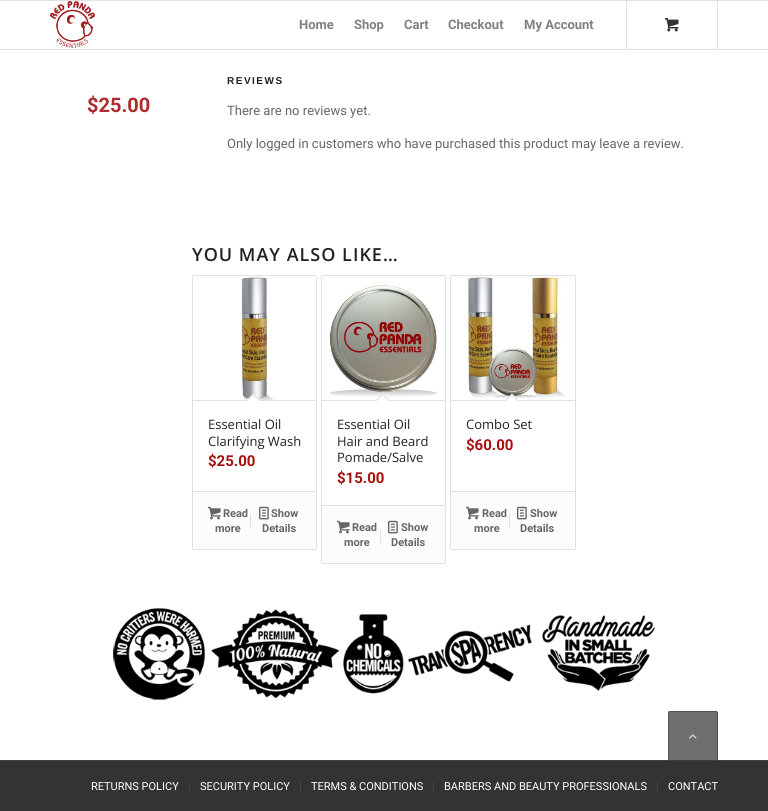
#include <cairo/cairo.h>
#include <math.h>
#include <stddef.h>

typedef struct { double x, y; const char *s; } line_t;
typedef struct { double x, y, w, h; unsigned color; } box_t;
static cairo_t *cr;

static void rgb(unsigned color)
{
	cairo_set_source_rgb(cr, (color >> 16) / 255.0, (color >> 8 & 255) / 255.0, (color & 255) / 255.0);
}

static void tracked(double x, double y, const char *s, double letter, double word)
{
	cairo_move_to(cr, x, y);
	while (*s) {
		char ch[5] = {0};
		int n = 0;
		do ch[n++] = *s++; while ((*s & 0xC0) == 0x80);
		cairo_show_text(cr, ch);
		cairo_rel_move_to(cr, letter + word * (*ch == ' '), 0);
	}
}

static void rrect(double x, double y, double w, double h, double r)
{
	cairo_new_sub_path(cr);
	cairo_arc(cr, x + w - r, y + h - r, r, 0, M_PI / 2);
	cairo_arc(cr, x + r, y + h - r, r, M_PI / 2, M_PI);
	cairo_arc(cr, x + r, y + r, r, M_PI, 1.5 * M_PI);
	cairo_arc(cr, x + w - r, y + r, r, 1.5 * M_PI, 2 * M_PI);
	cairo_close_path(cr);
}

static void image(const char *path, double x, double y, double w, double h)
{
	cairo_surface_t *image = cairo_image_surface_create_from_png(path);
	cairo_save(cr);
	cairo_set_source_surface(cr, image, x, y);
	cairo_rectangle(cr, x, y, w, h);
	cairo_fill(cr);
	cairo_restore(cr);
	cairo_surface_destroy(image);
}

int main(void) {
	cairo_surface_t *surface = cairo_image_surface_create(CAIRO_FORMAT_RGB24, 768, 811);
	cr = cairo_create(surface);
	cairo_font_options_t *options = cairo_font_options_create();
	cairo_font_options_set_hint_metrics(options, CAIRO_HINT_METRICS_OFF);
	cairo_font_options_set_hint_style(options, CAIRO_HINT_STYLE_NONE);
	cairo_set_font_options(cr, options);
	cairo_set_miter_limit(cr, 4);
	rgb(0xffffff);
	cairo_paint(cr);
	rgb(0xe1e1e1);
	cairo_rectangle(cr, 0, 0, 768, 1);
	cairo_fill(cr);
	cairo_rectangle(cr, 0, 49, 768, 1);
	cairo_fill(cr);
	image("img/1.png", 50, 1, 45, 47);
	cairo_rectangle(cr, 717, 1, 1, 48);
	cairo_fill(cr);
	cairo_rectangle(cr, 626, 1, 1, 48);
	cairo_fill(cr);
	image("img/2.png", 665, 18, 14, 14);
	rrect(192.5, 275.5, 124, 274, 1.5);
	cairo_set_line_width(cr, 1);
	cairo_stroke(cr);
	image("img/3.png", 241, 277, 33, 123);
	cairo_rectangle(cr, 193, 400, 123, 1);
	cairo_fill(cr);
	rgb(0xffffff);
	cairo_new_path(cr);
	cairo_move_to(cr, 253.5, 393.5);
	cairo_line_to(cr, 260.5, 400.5);
	cairo_line_to(cr, 253.5, 407.5);
	cairo_line_to(cr, 246, 400.5);
	cairo_close_path(cr);
	cairo_fill(cr);
	rgb(0xe1e1e1);
	cairo_new_path(cr);
	cairo_move_to(cr, 253.5, 393.5);
	cairo_line_to(cr, 260.5, 400.5);
	cairo_line_to(cr, 259.5, 401.5);
	cairo_line_to(cr, 252.5, 394.5);
	cairo_close_path(cr);
	cairo_fill(cr);
	cairo_new_path(cr);
	cairo_move_to(cr, 253.5, 393.5);
	cairo_line_to(cr, 254, 394.5);
	cairo_line_to(cr, 247, 401.5);
	cairo_line_to(cr, 246, 400.5);
	cairo_close_path(cr);
	cairo_fill(cr);
	rgb(0xfcfcfc);
	cairo_new_path(cr);
	cairo_move_to(cr, 193, 491);
	cairo_line_to(cr, 316, 491);
	cairo_line_to(cr, 316, 548);
	cairo_curve_to(cr, 316, 548.5, 315.5, 549, 315, 549);
	cairo_line_to(cr, 194, 549);
	cairo_curve_to(cr, 193.5, 549, 193, 548.5, 193, 548);
	cairo_close_path(cr);
	cairo_fill(cr);
	rgb(0xe1e1e1);
	cairo_rectangle(cr, 193, 491, 123, 1);
	cairo_fill(cr);
	image("img/4.png", 208, 506, 13, 14);
	cairo_rectangle(cr, 250, 514, 1, 14);
	cairo_fill(cr);
	image("img/5.png", 259, 506, 10, 14);
	rrect(321.5, 275.5, 124, 288, 1.5);
	cairo_stroke(cr);
	image("img/6.png", 329, 285, 108, 112);
	cairo_rectangle(cr, 322, 400, 123, 1);
	cairo_fill(cr);
	rgb(0xffffff);
	cairo_new_path(cr);
	cairo_move_to(cr, 382.5, 393.5);
	cairo_line_to(cr, 389.5, 400.5);
	cairo_line_to(cr, 382.5, 407.5);
	cairo_line_to(cr, 375.5, 400.5);
	cairo_close_path(cr);
	cairo_fill(cr);
	rgb(0xe1e1e1);
	cairo_new_path(cr);
	cairo_move_to(cr, 382.5, 393.5);
	cairo_line_to(cr, 389.5, 400.5);
	cairo_line_to(cr, 389, 401.5);
	cairo_line_to(cr, 382, 394.5);
	cairo_close_path(cr);
	cairo_fill(cr);
	cairo_new_path(cr);
	cairo_move_to(cr, 382.5, 393.5);
	cairo_line_to(cr, 383.5, 394.5);
	cairo_line_to(cr, 376, 401.5);
	cairo_line_to(cr, 375.5, 400.5);
	cairo_close_path(cr);
	cairo_fill(cr);
	rgb(0xfcfcfc);
	cairo_new_path(cr);
	cairo_move_to(cr, 322, 505);
	cairo_line_to(cr, 445, 505);
	cairo_line_to(cr, 445, 562);
	cairo_curve_to(cr, 445, 562.5, 444.5, 563, 444, 563);
	cairo_line_to(cr, 323, 563);
	cairo_curve_to(cr, 322.5, 563, 322, 562.5, 322, 562);
	cairo_close_path(cr);
	cairo_fill(cr);
	rgb(0xe1e1e1);
	cairo_rectangle(cr, 322, 505, 123, 1);
	cairo_fill(cr);
	image("img/4.png", 337, 520, 13, 14);
	cairo_rectangle(cr, 380, 529, 1, 14);
	cairo_fill(cr);
	image("img/5.png", 388, 520, 10, 14);
	rrect(450.5, 275.5, 125, 274, 1.5);
	cairo_stroke(cr);
	image("img/7.png", 467, 276, 99, 122);
	cairo_rectangle(cr, 451, 400, 124, 1);
	cairo_fill(cr);
	rgb(0xffffff);
	cairo_new_path(cr);
	cairo_move_to(cr, 512, 393.5);
	cairo_line_to(cr, 519, 400.5);
	cairo_line_to(cr, 512, 407.5);
	cairo_line_to(cr, 505, 400.5);
	cairo_close_path(cr);
	cairo_fill(cr);
	rgb(0xe1e1e1);
	cairo_new_path(cr);
	cairo_move_to(cr, 512, 393.5);
	cairo_line_to(cr, 519, 400.5);
	cairo_line_to(cr, 518, 401.5);
	cairo_line_to(cr, 511, 394.5);
	cairo_close_path(cr);
	cairo_fill(cr);
	cairo_new_path(cr);
	cairo_move_to(cr, 512, 393.5);
	cairo_line_to(cr, 512.5, 394.5);
	cairo_line_to(cr, 505.5, 401.5);
	cairo_line_to(cr, 505, 400.5);
	cairo_close_path(cr);
	cairo_fill(cr);
	rgb(0xfcfcfc);
	cairo_new_path(cr);
	cairo_move_to(cr, 451, 491);
	cairo_line_to(cr, 575, 491);
	cairo_line_to(cr, 575, 548);
	cairo_curve_to(cr, 575, 548.5, 574.5, 549, 574, 549);
	cairo_line_to(cr, 452, 549);
	cairo_curve_to(cr, 451.5, 549, 451, 548.5, 451, 548);
	cairo_close_path(cr);
	cairo_fill(cr);
	rgb(0xe1e1e1);
	cairo_rectangle(cr, 451, 491, 124, 1);
	cairo_fill(cr);
	image("img/4.png", 466, 506, 13, 14);
	cairo_rectangle(cr, 509, 514, 1, 14);
	cairo_fill(cr);
	image("img/5.png", 517, 506, 10, 14);
	image("img/8.png", 113, 608, 542, 92);
	{
		static const box_t items[] = {
			{0, 761, 768, 50, 0x333333},
			{0, 760, 768, 1, 0x444444},
			{189, 782, 1, 10, 0x444444},
			{300, 782, 1, 10, 0x444444},
			{433, 782, 1, 10, 0x444444},
			{657, 782, 1, 10, 0x444444},
		};
		for (size_t i = 0; i < sizeof items / sizeof *items; i++) {
			rgb(items[i].color);
			cairo_rectangle(cr, items[i].x, items[i].y, items[i].w, items[i].h);
			cairo_fill(cr);
		}
	}
	cairo_set_source_rgba(cr, 0.2, 0.2, 0.2, 0.7);
	rrect(668, 711, 50, 50, 2);
	cairo_fill(cr);
	rrect(668.5, 711.5, 49, 49, 1.5);
	cairo_set_source_rgba(cr, 0.267, 0.267, 0.267, 0.7);
	cairo_stroke(cr);
	image("img/9.png", 689, 734, 8, 5);
	cairo_select_font_face(cr, "Roboto", CAIRO_FONT_SLANT_NORMAL, CAIRO_FONT_WEIGHT_BOLD);
	cairo_set_font_size(cr, 13);
	rgb(0x808080);
	{
		static const line_t items[] = {
			{299, 29, "Home"},
			{354, 29, "Shop"},
			{404, 29, "Cart"},
			{448, 29, "Checkout"},
			{524, 29, "My Account"},
		};
		for (size_t i = 0; i < sizeof items / sizeof *items; i++) {
			cairo_move_to(cr, items[i].x, items[i].y);
			cairo_show_text(cr, items[i].s);
		}
	}
	cairo_set_font_size(cr, 20);
	rgb(0xb02b2c);
	cairo_move_to(cr, 87, 112);
	cairo_show_text(cr, "$25.00");
	cairo_select_font_face(cr, "Liberation Sans", CAIRO_FONT_SLANT_NORMAL, CAIRO_FONT_WEIGHT_BOLD);
	cairo_set_font_size(cr, 10);
	rgb(0x222222);
	tracked(227, 84, "REVIEWS", 1.5, 0);
	cairo_select_font_face(cr, "Roboto", CAIRO_FONT_SLANT_NORMAL, CAIRO_FONT_WEIGHT_NORMAL);
	cairo_set_font_size(cr, 13);
	rgb(0x666666);
	cairo_move_to(cr, 227, 115);
	cairo_show_text(cr, "There are no reviews yet.");
	cairo_move_to(cr, 227, 148);
	cairo_show_text(cr, "Only logged in customers who have purchased this product may leave a review.");
	cairo_select_font_face(cr, "Open Sans SemiBold", CAIRO_FONT_SLANT_NORMAL, CAIRO_FONT_WEIGHT_NORMAL);
	cairo_set_font_size(cr, 18);
	rgb(0x222222);
	tracked(192, 261, "YOU MAY ALSO LIKE…", 1, 0);
	cairo_select_font_face(cr, "Open Sans", CAIRO_FONT_SLANT_NORMAL, CAIRO_FONT_WEIGHT_NORMAL);
	cairo_set_font_size(cr, 13);
	cairo_move_to(cr, 208, 429);
	cairo_show_text(cr, "Essential Oil");
	cairo_move_to(cr, 208, 446);
	cairo_show_text(cr, "Clarifying Wash");
	cairo_select_font_face(cr, "Roboto", CAIRO_FONT_SLANT_NORMAL, CAIRO_FONT_WEIGHT_BOLD);
	cairo_set_font_size(cr, 15);
	rgb(0xa81010);
	cairo_move_to(cr, 208, 466);
	cairo_show_text(cr, "$25.00");
	cairo_set_font_size(cr, 11);
	rgb(0x666666);
	{
		static const line_t items[] = {
			{223, 517, "Read"},
			{215, 532, "more"},
			{271, 517, "Show"},
			{262, 532, "Details"},
		};
		for (size_t i = 0; i < sizeof items / sizeof *items; i++) {
			cairo_move_to(cr, items[i].x, items[i].y);
			cairo_show_text(cr, items[i].s);
		}
	}
	cairo_select_font_face(cr, "Open Sans", CAIRO_FONT_SLANT_NORMAL, CAIRO_FONT_WEIGHT_NORMAL);
	cairo_set_font_size(cr, 13);
	rgb(0x222222);
	{
		static const line_t items[] = {
			{337, 429, "Essential Oil"},
			{337, 446, "Hair and Beard"},
			{337, 462, "Pomade/Salve"},
		};
		for (size_t i = 0; i < sizeof items / sizeof *items; i++) {
			cairo_move_to(cr, items[i].x, items[i].y);
			cairo_show_text(cr, items[i].s);
		}
	}
	cairo_select_font_face(cr, "Roboto", CAIRO_FONT_SLANT_NORMAL, CAIRO_FONT_WEIGHT_BOLD);
	cairo_set_font_size(cr, 15);
	rgb(0xa81010);
	cairo_move_to(cr, 337, 483);
	cairo_show_text(cr, "$15.00");
	cairo_set_font_size(cr, 11);
	rgb(0x666666);
	{
		static const line_t items[] = {
			{352, 531, "Read"},
			{344, 546, "more"},
			{401, 531, "Show"},
			{391, 546, "Details"},
		};
		for (size_t i = 0; i < sizeof items / sizeof *items; i++) {
			cairo_move_to(cr, items[i].x, items[i].y);
			cairo_show_text(cr, items[i].s);
		}
	}
	cairo_select_font_face(cr, "Open Sans", CAIRO_FONT_SLANT_NORMAL, CAIRO_FONT_WEIGHT_NORMAL);
	cairo_set_font_size(cr, 13);
	rgb(0x222222);
	cairo_move_to(cr, 466, 429);
	cairo_show_text(cr, "Combo Set");
	cairo_select_font_face(cr, "Roboto", CAIRO_FONT_SLANT_NORMAL, CAIRO_FONT_WEIGHT_BOLD);
	cairo_set_font_size(cr, 15);
	rgb(0xa81010);
	cairo_move_to(cr, 466, 450);
	cairo_show_text(cr, "$60.00");
	cairo_set_font_size(cr, 11);
	rgb(0x666666);
	{
		static const line_t items[] = {
			{482, 517, "Read"},
			{474, 532, "more"},
			{530, 517, "Show"},
			{520, 532, "Details"},
		};
		for (size_t i = 0; i < sizeof items / sizeof *items; i++) {
			cairo_move_to(cr, items[i].x, items[i].y);
			cairo_show_text(cr, items[i].s);
		}
	}
	cairo_select_font_face(cr, "Roboto", CAIRO_FONT_SLANT_NORMAL, CAIRO_FONT_WEIGHT_NORMAL);
	rgb(0xffffff);
	{
		static const line_t items[] = {
			{91, 790, "RETURNS POLICY"},
			{200, 790, "SECURITY POLICY"},
			{311, 790, "TERMS & CONDITIONS"},
			{444, 790, "BARBERS AND BEAUTY PROFESSIONALS"},
			{668, 790, "CONTACT"},
		};
		for (size_t i = 0; i < sizeof items / sizeof *items; i++) {
			cairo_move_to(cr, items[i].x, items[i].y);
			cairo_show_text(cr, items[i].s);
		}
	}
	cairo_surface_write_to_png(surface, "page.png");
	cairo_font_options_destroy(options);
	cairo_destroy(cr);
	cairo_surface_destroy(surface);
	return 0;
}
